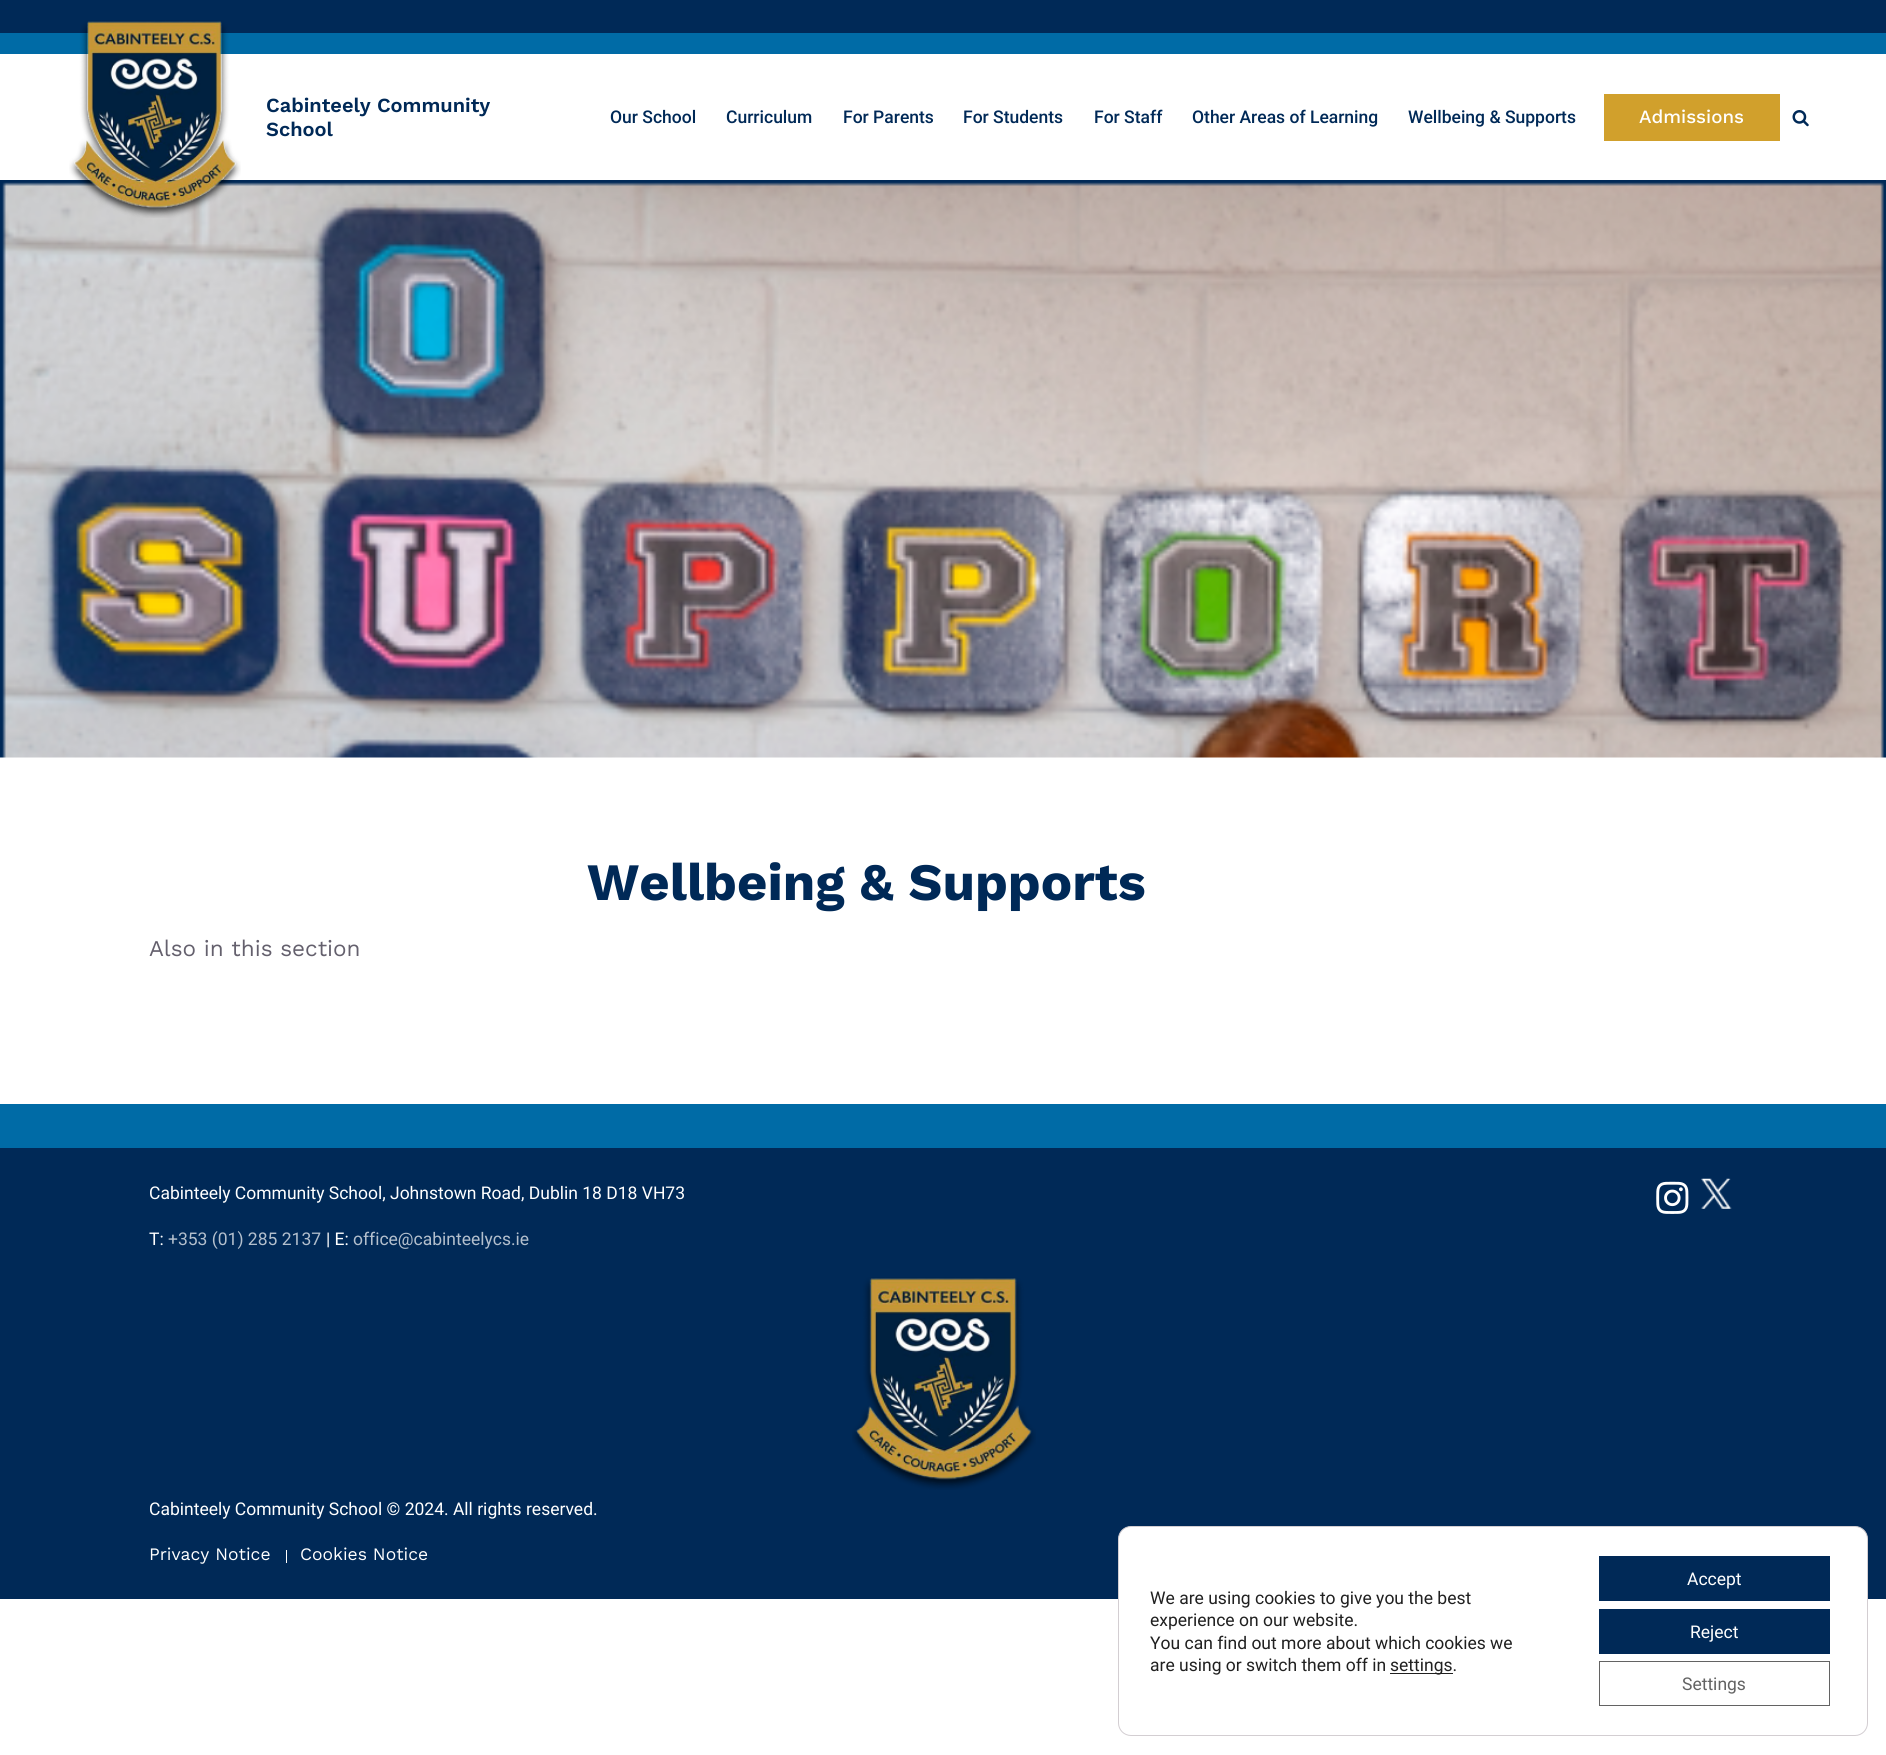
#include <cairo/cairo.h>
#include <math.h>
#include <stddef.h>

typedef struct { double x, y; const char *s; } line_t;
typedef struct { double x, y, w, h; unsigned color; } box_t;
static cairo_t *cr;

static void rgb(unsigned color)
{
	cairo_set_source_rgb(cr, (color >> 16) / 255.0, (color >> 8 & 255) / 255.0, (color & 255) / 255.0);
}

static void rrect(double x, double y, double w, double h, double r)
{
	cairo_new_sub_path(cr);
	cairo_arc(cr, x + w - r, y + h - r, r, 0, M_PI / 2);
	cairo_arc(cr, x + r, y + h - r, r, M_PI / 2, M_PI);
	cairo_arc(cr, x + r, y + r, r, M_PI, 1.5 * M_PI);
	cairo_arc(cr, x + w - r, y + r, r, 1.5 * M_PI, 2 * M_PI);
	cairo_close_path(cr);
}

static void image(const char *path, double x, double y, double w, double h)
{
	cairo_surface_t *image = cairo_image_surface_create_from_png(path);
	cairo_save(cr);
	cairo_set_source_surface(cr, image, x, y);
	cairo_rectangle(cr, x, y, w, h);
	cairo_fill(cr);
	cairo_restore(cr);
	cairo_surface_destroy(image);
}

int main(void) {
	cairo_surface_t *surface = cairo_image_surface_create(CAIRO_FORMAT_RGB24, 1886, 1755);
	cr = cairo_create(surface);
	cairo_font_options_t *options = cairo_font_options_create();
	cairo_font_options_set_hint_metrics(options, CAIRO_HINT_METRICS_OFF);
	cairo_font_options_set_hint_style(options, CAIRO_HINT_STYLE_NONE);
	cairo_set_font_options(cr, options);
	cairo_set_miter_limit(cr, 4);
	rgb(0xffffff);
	cairo_paint(cr);
	rgb(0x002957);
	cairo_rectangle(cr, 0, 0, 1886, 33);
	cairo_fill(cr);
	rgb(0x006ba6);
	cairo_rectangle(cr, 0, 33, 1886, 21);
	cairo_fill(cr);
	image("img/3.png", 0, 180, 1886, 578);
	image("img/1.png", 69, 20, 172, 198);
	rgb(0xd1a02c);
	cairo_rectangle(cr, 1604, 94, 176, 47);
	cairo_fill(cr);
	image("img/2.png", 1792, 110, 17, 17);
	rgb(0x002957);
	cairo_rectangle(cr, 0, 1148, 1886, 451);
	cairo_fill(cr);
	rgb(0x006ba6);
	cairo_rectangle(cr, 0, 1104, 1886, 44);
	cairo_fill(cr);
	image("img/4.png", 1656, 1181, 33, 33);
	image("img/5.png", 1701, 1178, 31, 31);
	image("img/6.png", 852, 1277, 184, 213);
	rgb(0xffffff);
	cairo_rectangle(cr, 286, 1550, 1, 13);
	cairo_fill(cr);
	rrect(1118.5, 1526.5, 749, 209, 12.5);
	cairo_fill_preserve(cr);
	rgb(0xd3ced2);
	cairo_set_line_width(cr, 1);
	cairo_stroke(cr);
	{
		static const box_t items[] = {
			{1390, 1673, 63, 1, 0x202020},
			{1599, 1556, 231, 45, 0x002957},
			{1599, 1609, 231, 45, 0x002957},
		};
		for (size_t i = 0; i < sizeof items / sizeof *items; i++) {
			rgb(items[i].color);
			cairo_rectangle(cr, items[i].x, items[i].y, items[i].w, items[i].h);
			cairo_fill(cr);
		}
	}
	cairo_rectangle(cr, 1599.5, 1661.5, 230, 44);
	rgb(0x636363);
	cairo_stroke(cr);
	cairo_select_font_face(cr, "Work Sans SemiBold", CAIRO_FONT_SLANT_NORMAL, CAIRO_FONT_WEIGHT_NORMAL);
	cairo_set_font_size(cr, 20);
	rgb(0x002957);
	cairo_move_to(cr, 266, 112);
	cairo_show_text(cr, "Cabinteely Community");
	cairo_move_to(cr, 266, 136);
	cairo_show_text(cr, "School");
	cairo_select_font_face(cr, "Roboto Medium", CAIRO_FONT_SLANT_NORMAL, CAIRO_FONT_WEIGHT_NORMAL);
	cairo_set_font_size(cr, 17.5);
	{
		static const line_t items[] = {
			{610, 123, "Our School"},
			{726, 123, "Curriculum"},
			{843, 123, "For Parents"},
			{963, 123, "For Students"},
			{1094, 123, "For Staff"},
			{1192, 123, "Other Areas of Learning"},
			{1408, 123, "Wellbeing & Supports"},
		};
		for (size_t i = 0; i < sizeof items / sizeof *items; i++) {
			cairo_move_to(cr, items[i].x, items[i].y);
			cairo_show_text(cr, items[i].s);
		}
	}
	cairo_select_font_face(cr, "Work Sans Medium", CAIRO_FONT_SLANT_NORMAL, CAIRO_FONT_WEIGHT_NORMAL);
	cairo_set_font_size(cr, 18.75);
	rgb(0xffffff);
	cairo_move_to(cr, 1639, 123);
	cairo_show_text(cr, "Admissions");
	cairo_select_font_face(cr, "Work Sans", CAIRO_FONT_SLANT_NORMAL, CAIRO_FONT_WEIGHT_BOLD);
	cairo_set_font_size(cr, 52.5);
	rgb(0x002957);
	cairo_move_to(cr, 587, 900);
	cairo_show_text(cr, "Wellbeing & Supports");
	cairo_select_font_face(cr, "Work Sans", CAIRO_FONT_SLANT_NORMAL, CAIRO_FONT_WEIGHT_NORMAL);
	cairo_set_font_size(cr, 22.5);
	rgb(0x64606d);
	cairo_move_to(cr, 149, 956);
	cairo_show_text(cr, "Also in this section");
	cairo_select_font_face(cr, "Roboto", CAIRO_FONT_SLANT_NORMAL, CAIRO_FONT_WEIGHT_NORMAL);
	cairo_set_font_size(cr, 17.5);
	rgb(0xffffff);
	cairo_move_to(cr, 149, 1199);
	cairo_show_text(cr, "Cabinteely Community School, Johnstown Road, Dublin 18 D18 VH73");
	cairo_move_to(cr, 149, 1245);
	cairo_show_text(cr, "T:");
	rgb(0xb3bfcd);
	cairo_move_to(cr, 168, 1245);
	cairo_show_text(cr, "+353 (01) 285 2137");
	rgb(0xffffff);
	cairo_move_to(cr, 326, 1245);
	cairo_show_text(cr, "| E:");
	rgb(0xb3bfcd);
	cairo_move_to(cr, 353, 1245);
	cairo_show_text(cr, "office@cabinteelycs.ie");
	rgb(0xffffff);
	cairo_move_to(cr, 149, 1515);
	cairo_show_text(cr, "Cabinteely Community School © 2024. All rights reserved.");
	cairo_select_font_face(cr, "Work Sans", CAIRO_FONT_SLANT_NORMAL, CAIRO_FONT_WEIGHT_NORMAL);
	cairo_move_to(cr, 149, 1560);
	cairo_show_text(cr, "Privacy Notice");
	cairo_move_to(cr, 300, 1560);
	cairo_show_text(cr, "Cookies Notice");
	cairo_select_font_face(cr, "Roboto", CAIRO_FONT_SLANT_NORMAL, CAIRO_FONT_WEIGHT_NORMAL);
	rgb(0x202020);
	{
		static const line_t items[] = {
			{1150, 1604, "We are using cookies to give you the best"},
			{1150, 1626, "experience on our website."},
			{1150, 1649, "You can find out more about which cookies we"},
			{1150, 1671, "are using or switch them off in"},
			{1390, 1671, "settings."},
		};
		for (size_t i = 0; i < sizeof items / sizeof *items; i++) {
			cairo_move_to(cr, items[i].x, items[i].y);
			cairo_show_text(cr, items[i].s);
		}
	}
	rgb(0xffffff);
	cairo_move_to(cr, 1687, 1585);
	cairo_show_text(cr, "Accept");
	cairo_move_to(cr, 1690, 1638);
	cairo_show_text(cr, "Reject");
	rgb(0x636363);
	cairo_move_to(cr, 1682, 1690);
	cairo_show_text(cr, "Settings");
	cairo_surface_write_to_png(surface, "page.png");
	cairo_font_options_destroy(options);
	cairo_destroy(cr);
	cairo_surface_destroy(surface);
	return 0;
}
